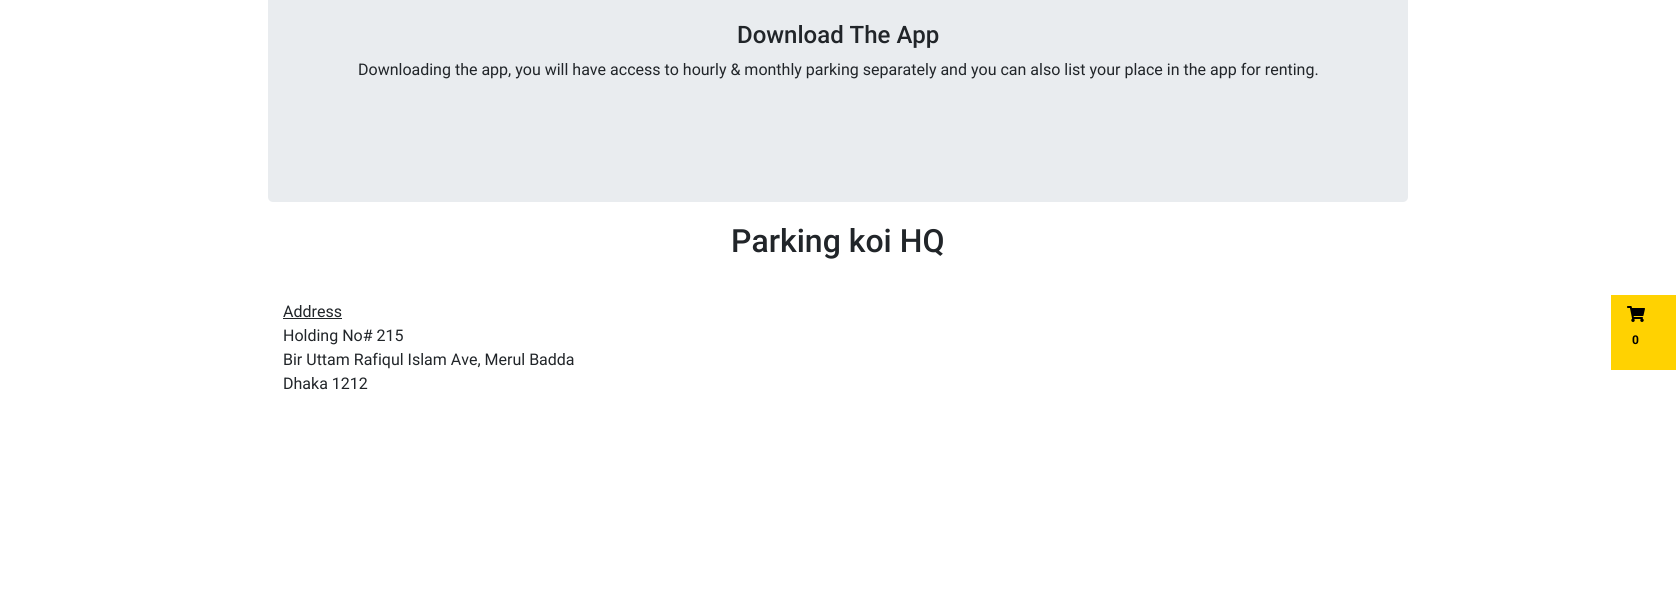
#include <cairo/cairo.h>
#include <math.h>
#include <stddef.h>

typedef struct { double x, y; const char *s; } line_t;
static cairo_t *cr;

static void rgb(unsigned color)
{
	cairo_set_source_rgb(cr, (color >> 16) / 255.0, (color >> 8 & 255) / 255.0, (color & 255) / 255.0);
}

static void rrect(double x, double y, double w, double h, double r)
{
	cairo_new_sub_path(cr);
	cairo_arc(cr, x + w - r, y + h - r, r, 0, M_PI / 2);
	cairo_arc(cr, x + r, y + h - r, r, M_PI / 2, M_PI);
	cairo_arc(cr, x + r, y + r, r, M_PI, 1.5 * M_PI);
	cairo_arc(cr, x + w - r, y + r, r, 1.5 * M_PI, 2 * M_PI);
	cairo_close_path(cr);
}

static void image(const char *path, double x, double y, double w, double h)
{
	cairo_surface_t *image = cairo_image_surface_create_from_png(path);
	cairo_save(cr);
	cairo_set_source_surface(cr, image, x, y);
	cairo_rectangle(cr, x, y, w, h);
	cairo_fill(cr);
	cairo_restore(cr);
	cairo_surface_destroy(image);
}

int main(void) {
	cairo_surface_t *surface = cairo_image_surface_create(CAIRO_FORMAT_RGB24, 1676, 616);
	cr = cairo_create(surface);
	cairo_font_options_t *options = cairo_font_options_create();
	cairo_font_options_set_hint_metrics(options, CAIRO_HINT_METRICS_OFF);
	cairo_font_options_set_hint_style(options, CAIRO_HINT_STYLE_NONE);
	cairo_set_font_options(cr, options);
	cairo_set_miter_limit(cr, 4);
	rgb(0xffffff);
	cairo_paint(cr);
	rgb(0xe9ecef);
	rrect(268, -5, 1140, 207, 5);
	cairo_fill(cr);
	rgb(0x212529);
	cairo_rectangle(cr, 283, 318, 59, 1);
	cairo_fill(cr);
	rgb(0xffd201);
	cairo_rectangle(cr, 1611, 295, 65, 75);
	cairo_fill(cr);
	image("img/1.png", 1627, 306, 18, 16);
	cairo_select_font_face(cr, "Roboto Medium", CAIRO_FONT_SLANT_NORMAL, CAIRO_FONT_WEIGHT_NORMAL);
	cairo_set_font_size(cr, 24);
	rgb(0x212529);
	cairo_move_to(cr, 737, 43);
	cairo_show_text(cr, "Download The App");
	cairo_select_font_face(cr, "Roboto", CAIRO_FONT_SLANT_NORMAL, CAIRO_FONT_WEIGHT_NORMAL);
	cairo_set_font_size(cr, 16);
	cairo_move_to(cr, 358, 75);
	cairo_show_text(cr, "Downloading the app, you will have access to hourly & monthly parking separately and you can also list your place in the app for renting.");
	cairo_select_font_face(cr, "Roboto Medium", CAIRO_FONT_SLANT_NORMAL, CAIRO_FONT_WEIGHT_NORMAL);
	cairo_set_font_size(cr, 32);
	cairo_move_to(cr, 731, 252);
	cairo_show_text(cr, "Parking koi HQ");
	cairo_select_font_face(cr, "Roboto", CAIRO_FONT_SLANT_NORMAL, CAIRO_FONT_WEIGHT_NORMAL);
	cairo_set_font_size(cr, 16);
	{
		static const line_t items[] = {
			{283, 317, "Address"},
			{283, 341, "Holding No# 215"},
			{283, 365, "Bir Uttam Rafiqul Islam Ave, Merul Badda"},
			{283, 389, "Dhaka 1212"},
		};
		for (size_t i = 0; i < sizeof items / sizeof *items; i++) {
			cairo_move_to(cr, items[i].x, items[i].y);
			cairo_show_text(cr, items[i].s);
		}
	}
	cairo_select_font_face(cr, "Roboto", CAIRO_FONT_SLANT_NORMAL, CAIRO_FONT_WEIGHT_BOLD);
	cairo_set_font_size(cr, 12);
	rgb(0x000000);
	cairo_move_to(cr, 1632, 344);
	cairo_show_text(cr, "0");
	cairo_surface_write_to_png(surface, "page.png");
	cairo_font_options_destroy(options);
	cairo_destroy(cr);
	cairo_surface_destroy(surface);
	return 0;
}
